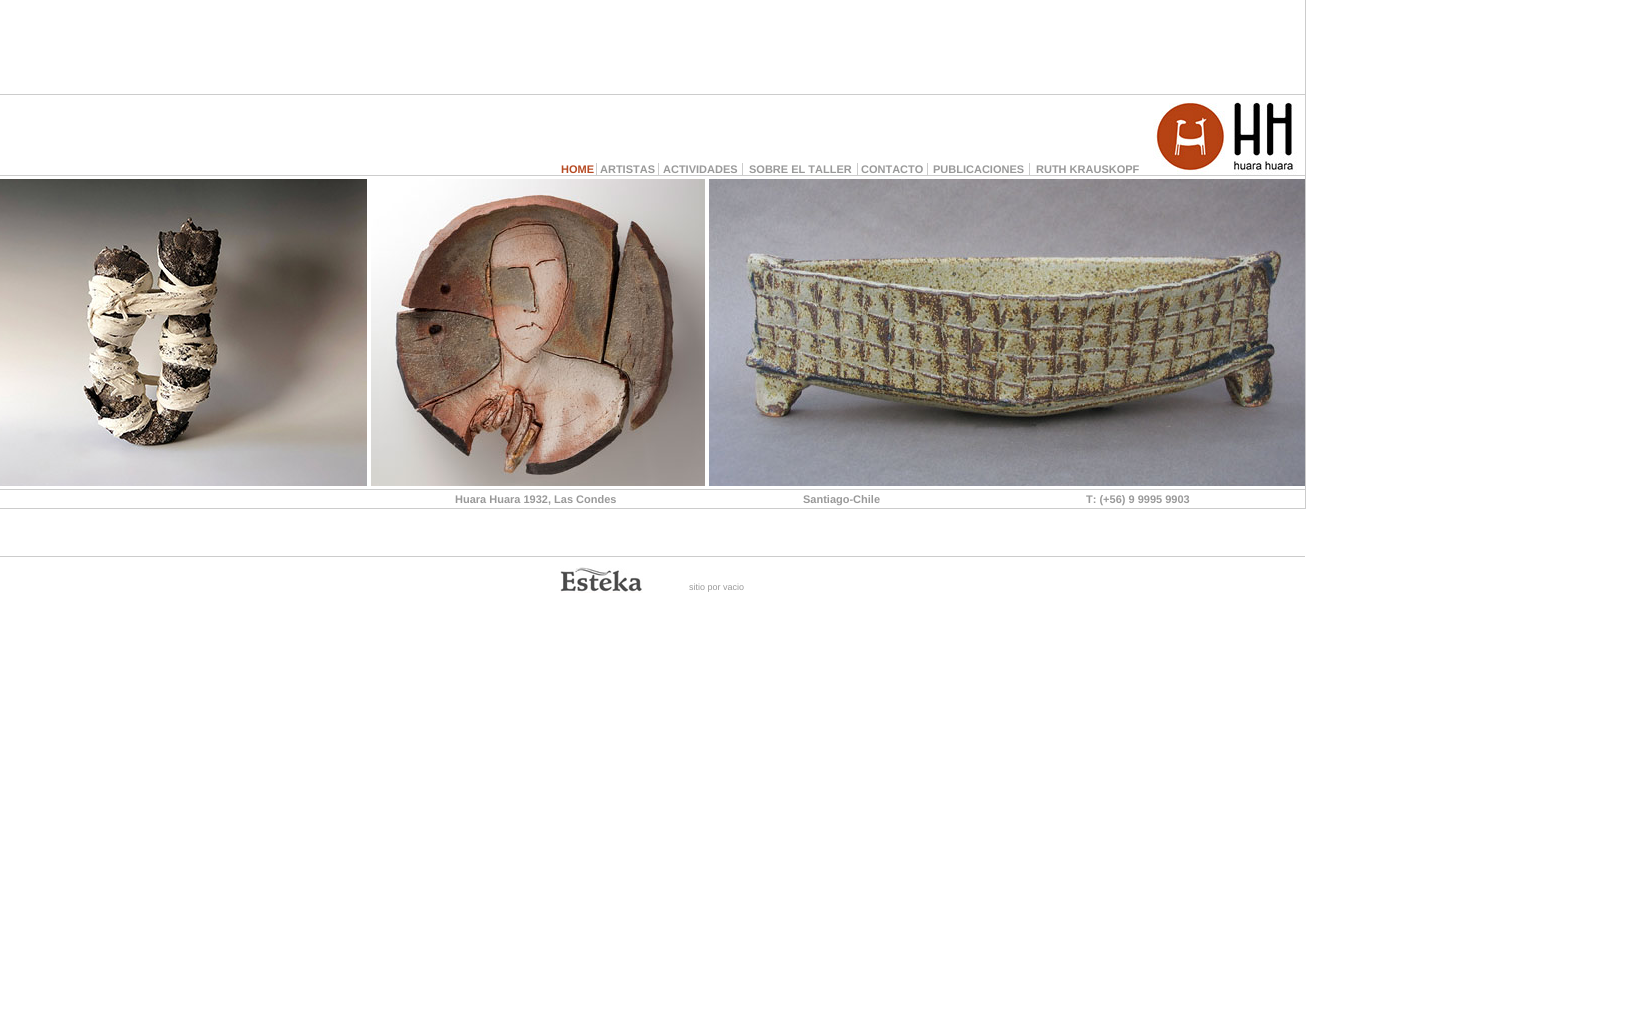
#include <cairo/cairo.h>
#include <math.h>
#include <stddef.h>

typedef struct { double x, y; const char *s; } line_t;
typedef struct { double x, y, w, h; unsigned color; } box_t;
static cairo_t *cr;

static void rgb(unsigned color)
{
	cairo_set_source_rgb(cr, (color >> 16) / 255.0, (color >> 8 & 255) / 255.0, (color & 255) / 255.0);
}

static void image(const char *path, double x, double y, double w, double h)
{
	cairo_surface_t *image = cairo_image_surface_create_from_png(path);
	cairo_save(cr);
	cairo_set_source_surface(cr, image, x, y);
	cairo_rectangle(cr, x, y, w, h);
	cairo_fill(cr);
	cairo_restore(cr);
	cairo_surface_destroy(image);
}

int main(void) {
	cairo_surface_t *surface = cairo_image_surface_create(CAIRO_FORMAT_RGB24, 1632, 1021);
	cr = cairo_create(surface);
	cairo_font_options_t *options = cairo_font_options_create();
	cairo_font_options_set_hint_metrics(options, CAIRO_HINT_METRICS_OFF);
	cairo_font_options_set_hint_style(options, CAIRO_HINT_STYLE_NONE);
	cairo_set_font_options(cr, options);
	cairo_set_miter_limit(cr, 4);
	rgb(0xffffff);
	cairo_paint(cr);
	{
		static const box_t items[] = {
			{1305, 0, 1, 94, 0xcccccc},
			{0, 94, 1306, 1, 0xcccccc},
			{596, 163, 1, 12, 0xcccccc},
			{658, 163, 1, 12, 0xcccccc},
			{742, 163, 1, 12, 0xcccccc},
			{857, 163, 1, 12, 0xcccccc},
			{927, 163, 1, 12, 0xcccccc},
			{1029, 163, 1, 12, 0xcccccc},
		};
		for (size_t i = 0; i < sizeof items / sizeof *items; i++) {
			rgb(items[i].color);
			cairo_rectangle(cr, items[i].x, items[i].y, items[i].w, items[i].h);
			cairo_fill(cr);
		}
	}
	image("img/1.png", 1153, 101, 144, 74);
	cairo_rectangle(cr, 1305, 95, 1, 80);
	cairo_fill(cr);
	cairo_rectangle(cr, 0, 175, 1306, 1);
	cairo_fill(cr);
	image("img/2.png", 0, 179, 1305, 307);
	{
		static const box_t items[] = {
			{1305, 176, 1, 313, 0xcccccc},
			{0, 489, 1306, 1, 0xcccccc},
			{1305, 490, 1, 18, 0xcccccc},
			{0, 508, 1306, 1, 0xcccccc},
			{0, 556, 1305, 1, 0xcccccc},
		};
		for (size_t i = 0; i < sizeof items / sizeof *items; i++) {
			rgb(items[i].color);
			cairo_rectangle(cr, items[i].x, items[i].y, items[i].w, items[i].h);
			cairo_fill(cr);
		}
	}
	image("img/3.png", 560, 567, 83, 26);
	cairo_select_font_face(cr, "Liberation Sans", CAIRO_FONT_SLANT_NORMAL, CAIRO_FONT_WEIGHT_BOLD);
	cairo_set_font_size(cr, 11);
	rgb(0xb64a23);
	cairo_move_to(cr, 561, 173);
	cairo_show_text(cr, "HOME");
	rgb(0x999999);
	{
		static const line_t items[] = {
			{600, 173, "ARTISTAS"},
			{663, 173, "ACTIVIDADES"},
			{749, 173, "SOBRE EL TALLER"},
			{861, 173, "CONTACTO"},
			{933, 173, "PUBLICACIONES"},
			{1036, 173, "RUTH KRAUSKOPF"},
			{455, 503, "Huara Huara 1932, Las Condes"},
			{803, 503, "Santiago-Chile"},
			{1086, 503, "T: (+56) 9 9995 9903"},
		};
		for (size_t i = 0; i < sizeof items / sizeof *items; i++) {
			cairo_move_to(cr, items[i].x, items[i].y);
			cairo_show_text(cr, items[i].s);
		}
	}
	cairo_select_font_face(cr, "Liberation Sans", CAIRO_FONT_SLANT_NORMAL, CAIRO_FONT_WEIGHT_NORMAL);
	cairo_set_font_size(cr, 9);
	cairo_move_to(cr, 689, 590);
	cairo_show_text(cr, "sitio por vacio");
	cairo_surface_write_to_png(surface, "page.png");
	cairo_font_options_destroy(options);
	cairo_destroy(cr);
	cairo_surface_destroy(surface);
	return 0;
}
